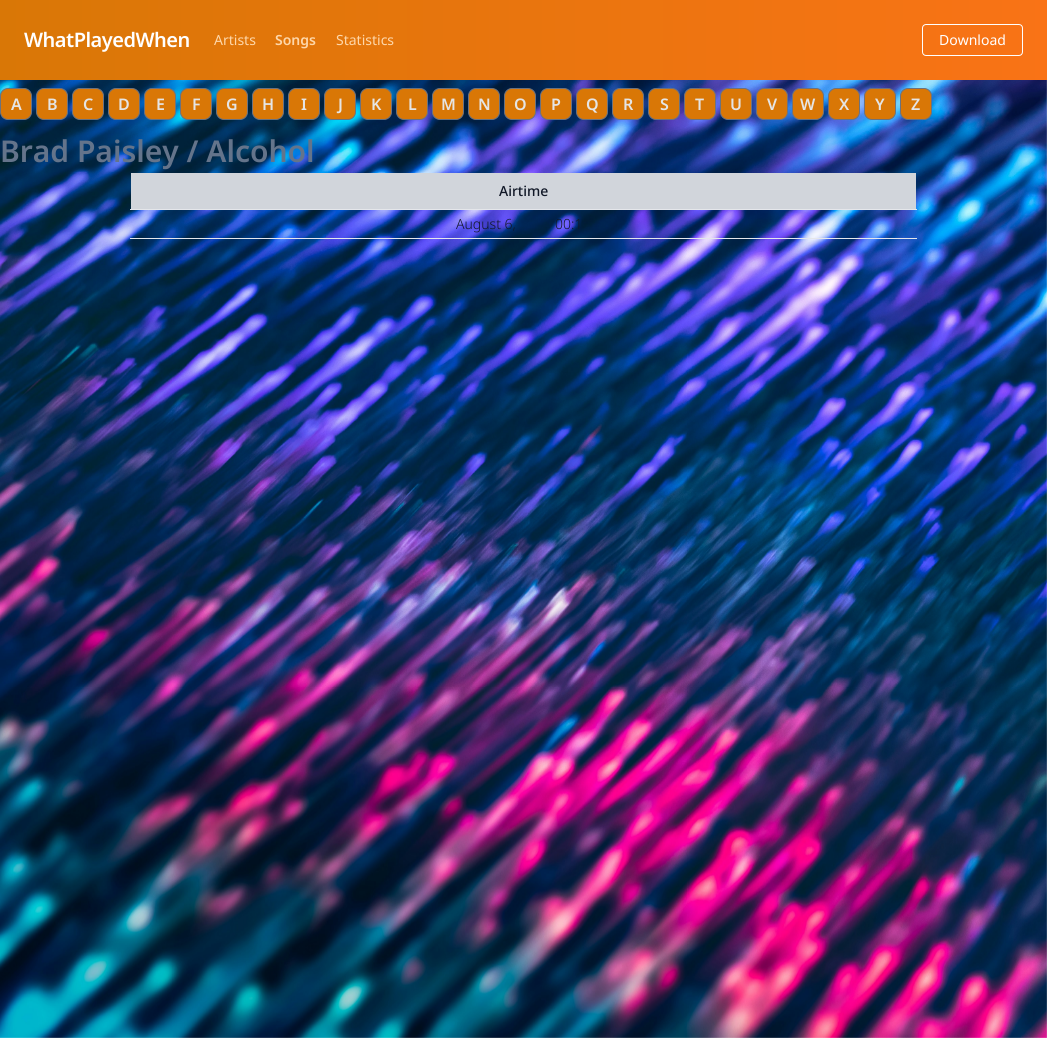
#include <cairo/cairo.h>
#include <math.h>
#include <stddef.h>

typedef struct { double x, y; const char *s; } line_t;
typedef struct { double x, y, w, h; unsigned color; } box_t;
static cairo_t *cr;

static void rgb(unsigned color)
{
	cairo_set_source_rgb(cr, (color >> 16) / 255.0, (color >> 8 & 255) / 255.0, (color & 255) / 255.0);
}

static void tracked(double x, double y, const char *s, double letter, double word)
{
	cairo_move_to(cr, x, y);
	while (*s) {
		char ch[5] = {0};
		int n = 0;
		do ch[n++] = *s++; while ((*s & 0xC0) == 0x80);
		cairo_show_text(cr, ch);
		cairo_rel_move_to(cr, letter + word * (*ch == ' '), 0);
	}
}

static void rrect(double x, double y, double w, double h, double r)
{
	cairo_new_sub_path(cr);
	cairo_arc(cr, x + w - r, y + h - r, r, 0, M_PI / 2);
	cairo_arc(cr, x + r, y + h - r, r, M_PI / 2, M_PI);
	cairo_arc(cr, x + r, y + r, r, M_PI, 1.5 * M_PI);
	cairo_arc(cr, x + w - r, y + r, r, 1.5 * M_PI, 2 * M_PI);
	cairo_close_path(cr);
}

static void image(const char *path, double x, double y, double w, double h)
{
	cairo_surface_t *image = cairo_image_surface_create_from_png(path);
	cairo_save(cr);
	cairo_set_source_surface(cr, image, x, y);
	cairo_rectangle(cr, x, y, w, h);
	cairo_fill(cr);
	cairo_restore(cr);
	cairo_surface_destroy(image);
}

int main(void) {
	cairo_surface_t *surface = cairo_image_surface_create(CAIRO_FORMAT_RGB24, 1047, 1038);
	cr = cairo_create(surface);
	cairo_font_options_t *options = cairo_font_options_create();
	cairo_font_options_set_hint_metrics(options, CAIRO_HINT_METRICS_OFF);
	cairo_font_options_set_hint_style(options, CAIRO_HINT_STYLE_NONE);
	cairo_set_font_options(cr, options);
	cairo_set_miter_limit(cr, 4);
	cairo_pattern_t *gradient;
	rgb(0xffffff);
	cairo_paint(cr);
	image("img/1.png", 0, 80, 1047, 958);
	gradient = cairo_pattern_create_linear(0, 40, 1047, 40);
	cairo_pattern_add_color_stop_rgba(gradient, 0, 0.851, 0.467, 0.024, 1);
	cairo_pattern_add_color_stop_rgba(gradient, 1, 0.976, 0.451, 0.086, 1);
	cairo_set_source(cr, gradient);
	cairo_pattern_destroy(gradient);
	cairo_rectangle(cr, 0, 0, 1047, 80);
	cairo_fill(cr);
	rrect(922.5, 24.5, 100, 31, 3.5);
	rgb(0xffffff);
	cairo_set_line_width(cr, 1);
	cairo_stroke(cr);
	rgb(0xd97706);
	rrect(0.5, 88.5, 31, 31, 7.5);
	cairo_fill_preserve(cr);
	rgb(0x6b7280);
	cairo_stroke(cr);
	rgb(0xd97706);
	rrect(36.5, 88.5, 31, 31, 7.5);
	cairo_fill_preserve(cr);
	rgb(0x6b7280);
	cairo_stroke(cr);
	rgb(0xd97706);
	rrect(72.5, 88.5, 31, 31, 7.5);
	cairo_fill_preserve(cr);
	rgb(0x6b7280);
	cairo_stroke(cr);
	rgb(0xd97706);
	rrect(108.5, 88.5, 31, 31, 7.5);
	cairo_fill_preserve(cr);
	rgb(0x6b7280);
	cairo_stroke(cr);
	rgb(0xd97706);
	rrect(144.5, 88.5, 31, 31, 7.5);
	cairo_fill_preserve(cr);
	rgb(0x6b7280);
	cairo_stroke(cr);
	rgb(0xd97706);
	rrect(180.5, 88.5, 31, 31, 7.5);
	cairo_fill_preserve(cr);
	rgb(0x6b7280);
	cairo_stroke(cr);
	rgb(0xd97706);
	rrect(216.5, 88.5, 31, 31, 7.5);
	cairo_fill_preserve(cr);
	rgb(0x6b7280);
	cairo_stroke(cr);
	rgb(0xd97706);
	rrect(252.5, 88.5, 31, 31, 7.5);
	cairo_fill_preserve(cr);
	rgb(0x6b7280);
	cairo_stroke(cr);
	rgb(0xd97706);
	rrect(288.5, 88.5, 31, 31, 7.5);
	cairo_fill_preserve(cr);
	rgb(0x6b7280);
	cairo_stroke(cr);
	rgb(0xd97706);
	rrect(324.5, 88.5, 31, 31, 7.5);
	cairo_fill_preserve(cr);
	rgb(0x6b7280);
	cairo_stroke(cr);
	rgb(0xd97706);
	rrect(360.5, 88.5, 31, 31, 7.5);
	cairo_fill_preserve(cr);
	rgb(0x6b7280);
	cairo_stroke(cr);
	rgb(0xd97706);
	rrect(396.5, 88.5, 31, 31, 7.5);
	cairo_fill_preserve(cr);
	rgb(0x6b7280);
	cairo_stroke(cr);
	rgb(0xd97706);
	rrect(432.5, 88.5, 31, 31, 7.5);
	cairo_fill_preserve(cr);
	rgb(0x6b7280);
	cairo_stroke(cr);
	rgb(0xd97706);
	rrect(468.5, 88.5, 31, 31, 7.5);
	cairo_fill_preserve(cr);
	rgb(0x6b7280);
	cairo_stroke(cr);
	rgb(0xd97706);
	rrect(504.5, 88.5, 31, 31, 7.5);
	cairo_fill_preserve(cr);
	rgb(0x6b7280);
	cairo_stroke(cr);
	rgb(0xd97706);
	rrect(540.5, 88.5, 31, 31, 7.5);
	cairo_fill_preserve(cr);
	rgb(0x6b7280);
	cairo_stroke(cr);
	rgb(0xd97706);
	rrect(576.5, 88.5, 31, 31, 7.5);
	cairo_fill_preserve(cr);
	rgb(0x6b7280);
	cairo_stroke(cr);
	rgb(0xd97706);
	rrect(612.5, 88.5, 31, 31, 7.5);
	cairo_fill_preserve(cr);
	rgb(0x6b7280);
	cairo_stroke(cr);
	rgb(0xd97706);
	rrect(648.5, 88.5, 31, 31, 7.5);
	cairo_fill_preserve(cr);
	rgb(0x6b7280);
	cairo_stroke(cr);
	rgb(0xd97706);
	rrect(684.5, 88.5, 31, 31, 7.5);
	cairo_fill_preserve(cr);
	rgb(0x6b7280);
	cairo_stroke(cr);
	rgb(0xd97706);
	rrect(720.5, 88.5, 31, 31, 7.5);
	cairo_fill_preserve(cr);
	rgb(0x6b7280);
	cairo_stroke(cr);
	rgb(0xd97706);
	rrect(756.5, 88.5, 31, 31, 7.5);
	cairo_fill_preserve(cr);
	rgb(0x6b7280);
	cairo_stroke(cr);
	rgb(0xd97706);
	rrect(792.5, 88.5, 31, 31, 7.5);
	cairo_fill_preserve(cr);
	rgb(0x6b7280);
	cairo_stroke(cr);
	rgb(0xd97706);
	rrect(828.5, 88.5, 31, 31, 7.5);
	cairo_fill_preserve(cr);
	rgb(0x6b7280);
	cairo_stroke(cr);
	rgb(0xd97706);
	rrect(864.5, 88.5, 31, 31, 7.5);
	cairo_fill_preserve(cr);
	rgb(0x6b7280);
	cairo_stroke(cr);
	rgb(0xd97706);
	rrect(900.5, 88.5, 31, 31, 7.5);
	cairo_fill_preserve(cr);
	rgb(0x6b7280);
	cairo_stroke(cr);
	{
		static const box_t items[] = {
			{131, 173, 785, 36, 0xd1d5db},
			{130, 209, 787, 1, 0xe5e7eb},
			{130, 238, 787, 1, 0xe5e7eb},
		};
		for (size_t i = 0; i < sizeof items / sizeof *items; i++) {
			rgb(items[i].color);
			cairo_rectangle(cr, items[i].x, items[i].y, items[i].w, items[i].h);
			cairo_fill(cr);
		}
	}
	cairo_select_font_face(cr, "Noto Sans SemiBold", CAIRO_FONT_SLANT_NORMAL, CAIRO_FONT_WEIGHT_NORMAL);
	cairo_set_font_size(cr, 20);
	rgb(0xffffff);
	tracked(24, 47, "WhatPlayedWhen", -0.5, 0);
	cairo_select_font_face(cr, "Noto Sans", CAIRO_FONT_SLANT_NORMAL, CAIRO_FONT_WEIGHT_NORMAL);
	cairo_set_font_size(cr, 14);
	rgb(0xfed7aa);
	cairo_move_to(cr, 214, 45);
	cairo_show_text(cr, "Artists");
	cairo_select_font_face(cr, "Noto Sans SemiBold", CAIRO_FONT_SLANT_NORMAL, CAIRO_FONT_WEIGHT_NORMAL);
	cairo_move_to(cr, 275, 45);
	cairo_show_text(cr, "Songs");
	cairo_select_font_face(cr, "Noto Sans", CAIRO_FONT_SLANT_NORMAL, CAIRO_FONT_WEIGHT_NORMAL);
	cairo_move_to(cr, 336, 45);
	cairo_show_text(cr, "Statistics");
	rgb(0xffffff);
	cairo_move_to(cr, 939, 45);
	cairo_show_text(cr, "Download");
	cairo_select_font_face(cr, "Noto Sans SemiBold", CAIRO_FONT_SLANT_NORMAL, CAIRO_FONT_WEIGHT_NORMAL);
	cairo_set_font_size(cr, 16);
	rgb(0xe5e5e5);
	{
		static const line_t items[] = {
			{11, 110, "A"},
			{47, 110, "B"},
			{83, 110, "C"},
			{118, 110, "D"},
			{156, 110, "E"},
			{192, 110, "F"},
			{226, 110, "G"},
			{262, 110, "H"},
			{301, 110, "I"},
			{338, 110, "J"},
			{371, 110, "K"},
			{408, 110, "L"},
			{441, 110, "M"},
			{478, 110, "N"},
			{514, 110, "O"},
			{551, 110, "P"},
			{586, 110, "Q"},
			{623, 110, "R"},
			{660, 110, "S"},
			{695, 110, "T"},
			{730, 110, "U"},
			{767, 110, "V"},
			{800, 110, "W"},
			{839, 110, "X"},
			{875, 110, "Y"},
			{911, 110, "Z"},
		};
		for (size_t i = 0; i < sizeof items / sizeof *items; i++) {
			cairo_move_to(cr, items[i].x, items[i].y);
			cairo_show_text(cr, items[i].s);
		}
	}
	cairo_set_font_size(cr, 30);
	rgb(0x64748b);
	cairo_move_to(cr, 0, 162);
	cairo_show_text(cr, "Brad Paisley / Alcohol");
	cairo_select_font_face(cr, "Noto Sans Medium", CAIRO_FONT_SLANT_NORMAL, CAIRO_FONT_WEIGHT_NORMAL);
	cairo_set_font_size(cr, 14);
	rgb(0x111827);
	cairo_move_to(cr, 499, 196);
	cairo_show_text(cr, "Airtime");
	cairo_select_font_face(cr, "Noto Sans Light", CAIRO_FONT_SLANT_NORMAL, CAIRO_FONT_WEIGHT_NORMAL);
	cairo_move_to(cr, 456, 229);
	cairo_show_text(cr, "August 6,");
	cairo_move_to(cr, 555, 229);
	cairo_show_text(cr, "00:1");
	cairo_surface_write_to_png(surface, "page.png");
	cairo_font_options_destroy(options);
	cairo_destroy(cr);
	cairo_surface_destroy(surface);
	return 0;
}
